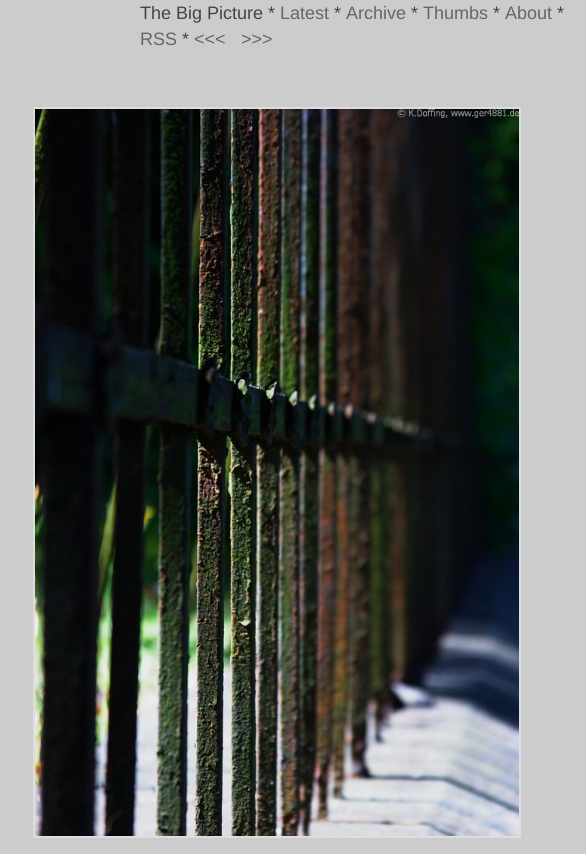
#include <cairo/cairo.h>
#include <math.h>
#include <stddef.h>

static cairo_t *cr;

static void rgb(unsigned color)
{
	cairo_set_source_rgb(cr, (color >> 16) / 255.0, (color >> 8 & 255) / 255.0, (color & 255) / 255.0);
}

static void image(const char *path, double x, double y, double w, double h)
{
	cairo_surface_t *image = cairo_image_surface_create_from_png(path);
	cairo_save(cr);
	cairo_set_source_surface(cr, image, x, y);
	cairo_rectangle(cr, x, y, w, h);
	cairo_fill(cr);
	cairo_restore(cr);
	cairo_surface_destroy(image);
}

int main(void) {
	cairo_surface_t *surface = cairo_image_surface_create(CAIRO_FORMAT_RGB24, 586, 854);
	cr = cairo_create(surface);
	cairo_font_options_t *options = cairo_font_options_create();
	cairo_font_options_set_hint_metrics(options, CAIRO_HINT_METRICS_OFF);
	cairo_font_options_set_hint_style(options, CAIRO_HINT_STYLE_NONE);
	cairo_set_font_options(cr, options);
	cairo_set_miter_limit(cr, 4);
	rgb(0xcccccc);
	cairo_paint(cr);
	cairo_rectangle(cr, 34, 108, 486, 729);
	rgb(0xdddddd);
	cairo_stroke(cr);
	image("img/1.png", 35, 109, 484, 727);
	cairo_select_font_face(cr, "Liberation Sans", CAIRO_FONT_SLANT_NORMAL, CAIRO_FONT_WEIGHT_NORMAL);
	cairo_set_font_size(cr, 18);
	rgb(0x444444);
	cairo_move_to(cr, 140, 19);
	cairo_show_text(cr, "The Big Picture *");
	rgb(0x666666);
	cairo_move_to(cr, 280, 19);
	cairo_show_text(cr, "Latest");
	rgb(0x444444);
	cairo_move_to(cr, 334, 19);
	cairo_show_text(cr, "*");
	rgb(0x666666);
	cairo_move_to(cr, 346, 19);
	cairo_show_text(cr, "Archive");
	rgb(0x444444);
	cairo_move_to(cr, 411, 19);
	cairo_show_text(cr, "*");
	rgb(0x666666);
	cairo_move_to(cr, 423, 19);
	cairo_show_text(cr, "Thumbs");
	rgb(0x444444);
	cairo_move_to(cr, 493, 19);
	cairo_show_text(cr, "*");
	rgb(0x666666);
	cairo_move_to(cr, 505, 19);
	cairo_show_text(cr, "About");
	rgb(0x444444);
	cairo_move_to(cr, 557, 19);
	cairo_show_text(cr, "*");
	rgb(0x666666);
	cairo_move_to(cr, 140, 45);
	cairo_show_text(cr, "RSS");
	rgb(0x444444);
	cairo_move_to(cr, 182, 45);
	cairo_show_text(cr, "*");
	rgb(0x666666);
	cairo_move_to(cr, 194, 45);
	cairo_show_text(cr, "<<<");
	cairo_move_to(cr, 241, 45);
	cairo_show_text(cr, ">>>");
	cairo_surface_write_to_png(surface, "page.png");
	cairo_font_options_destroy(options);
	cairo_destroy(cr);
	cairo_surface_destroy(surface);
	return 0;
}
